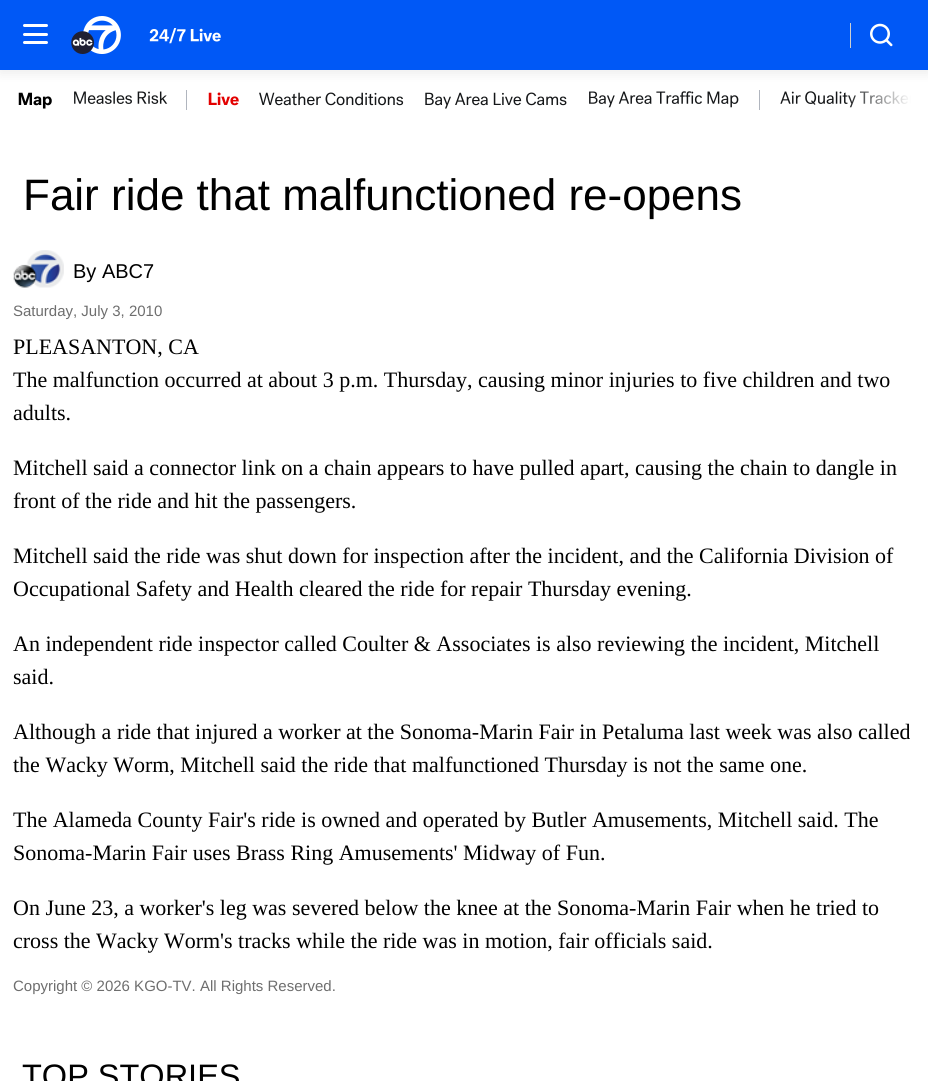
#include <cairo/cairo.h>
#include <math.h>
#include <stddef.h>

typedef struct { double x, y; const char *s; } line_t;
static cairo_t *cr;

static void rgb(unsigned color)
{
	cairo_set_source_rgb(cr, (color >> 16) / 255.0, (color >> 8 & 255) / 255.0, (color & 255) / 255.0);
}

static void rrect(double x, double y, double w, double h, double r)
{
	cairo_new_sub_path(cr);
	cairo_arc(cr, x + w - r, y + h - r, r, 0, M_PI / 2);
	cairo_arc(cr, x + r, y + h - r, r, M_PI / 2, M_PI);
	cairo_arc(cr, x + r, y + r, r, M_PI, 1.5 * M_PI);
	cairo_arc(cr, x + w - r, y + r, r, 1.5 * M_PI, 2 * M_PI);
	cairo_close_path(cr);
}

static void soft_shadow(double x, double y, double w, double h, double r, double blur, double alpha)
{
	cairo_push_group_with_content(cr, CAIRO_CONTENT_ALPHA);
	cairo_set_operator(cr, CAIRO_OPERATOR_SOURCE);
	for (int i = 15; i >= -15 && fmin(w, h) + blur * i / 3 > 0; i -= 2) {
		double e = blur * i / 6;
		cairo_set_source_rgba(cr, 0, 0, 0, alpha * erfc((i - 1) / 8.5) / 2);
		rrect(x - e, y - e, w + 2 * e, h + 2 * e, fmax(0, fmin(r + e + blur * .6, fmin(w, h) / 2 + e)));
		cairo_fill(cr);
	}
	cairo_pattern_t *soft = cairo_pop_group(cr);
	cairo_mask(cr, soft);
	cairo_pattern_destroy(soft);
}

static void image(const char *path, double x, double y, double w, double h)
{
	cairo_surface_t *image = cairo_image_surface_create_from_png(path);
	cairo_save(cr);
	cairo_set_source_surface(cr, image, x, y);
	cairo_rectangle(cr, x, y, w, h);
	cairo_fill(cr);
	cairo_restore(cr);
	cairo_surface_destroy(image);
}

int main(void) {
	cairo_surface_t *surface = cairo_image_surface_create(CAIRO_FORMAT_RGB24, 928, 1081);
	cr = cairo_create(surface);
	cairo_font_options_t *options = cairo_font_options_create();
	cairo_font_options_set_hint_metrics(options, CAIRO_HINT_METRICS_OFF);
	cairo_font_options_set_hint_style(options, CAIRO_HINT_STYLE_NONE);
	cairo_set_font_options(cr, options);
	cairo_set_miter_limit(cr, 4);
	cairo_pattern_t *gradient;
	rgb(0xffffff);
	cairo_paint(cr);
	image("img/5.png", 74, 91, 94, 13);
	rgb(0xb0b5be);
	cairo_rectangle(cr, 186, 90, 1, 20);
	cairo_fill(cr);
	image("img/9.png", 589, 91, 150, 17);
	cairo_rectangle(cr, 759, 90, 1, 20);
	cairo_fill(cr);
	image("img/10.png", 780, 91, 131, 17);
	gradient = cairo_pattern_create_linear(911, 100, 845, 100);
	cairo_pattern_add_color_stop_rgba(gradient, 0, 1, 1, 1, 1);
	cairo_pattern_add_color_stop_rgba(gradient, 1, 1, 1, 1, 0);
	cairo_set_source(cr, gradient);
	cairo_pattern_destroy(gradient);
	cairo_rectangle(cr, 846, 91, 65, 17);
	cairo_fill(cr);
	rgb(0x000000);
	soft_shadow(0, 3, 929, 70, 0, 6, 0.08);
	rgb(0x0058f6);
	cairo_rectangle(cr, 0, 0, 928, 70);
	cairo_fill(cr);
	rgb(0xffffff);
	rrect(23, 33, 25, 3, 1.5);
	cairo_fill(cr);
	rrect(23, 24, 25, 3, 1.5);
	cairo_fill(cr);
	rrect(23, 41, 25, 3, 1.5);
	cairo_fill(cr);
	image("img/1.png", 71, 16, 50, 38);
	image("img/2.png", 149, 28, 72, 16);
	rgb(0xcecfcf);
	cairo_rectangle(cr, 850, 23, 1, 25);
	cairo_fill(cr);
	image("img/3.png", 870, 23, 23, 24);
	image("img/4.png", 18, 92, 34, 17);
	image("img/6.png", 208, 92, 31, 14);
	image("img/7.png", 259, 92, 145, 14);
	image("img/8.png", 425, 92, 142, 17);
	image("img/11.png", 13, 250, 51, 38);
	cairo_select_font_face(cr, "Liberation Sans", CAIRO_FONT_SLANT_NORMAL, CAIRO_FONT_WEIGHT_NORMAL);
	cairo_set_font_size(cr, 44);
	rgb(0x000000);
	cairo_move_to(cr, 23, 210);
	cairo_show_text(cr, "Fair ride that malfunctioned re-opens");
	cairo_set_font_size(cr, 20);
	cairo_move_to(cr, 73, 278);
	cairo_show_text(cr, "By ABC7");
	cairo_set_font_size(cr, 15);
	rgb(0x6e6e6e);
	cairo_move_to(cr, 13, 316);
	cairo_show_text(cr, "Saturday, July 3, 2010");
	cairo_select_font_face(cr, "Liberation Serif", CAIRO_FONT_SLANT_NORMAL, CAIRO_FONT_WEIGHT_NORMAL);
	cairo_set_font_size(cr, 22);
	rgb(0x000000);
	{
		static const line_t items[] = {
			{13, 354, "PLEASANTON, CA"},
			{13, 387, "The malfunction occurred at about 3 p.m. Thursday, causing minor injuries to five children and two"},
			{13, 420, "adults."},
			{13, 475, "Mitchell said a connector link on a chain appears to have pulled apart, causing the chain to dangle in"},
			{13, 508, "front of the ride and hit the passengers."},
			{13, 563, "Mitchell said the ride was shut down for inspection after the incident, and the California Division of"},
			{13, 596, "Occupational Safety and Health cleared the ride for repair Thursday evening."},
			{13, 651, "An independent ride inspector called Coulter & Associates is also reviewing the incident, Mitchell"},
			{13, 684, "said."},
			{13, 739, "Although a ride that injured a worker at the Sonoma-Marin Fair in Petaluma last week was also called"},
			{13, 772, "the Wacky Worm, Mitchell said the ride that malfunctioned Thursday is not the same one."},
			{13, 827, "The Alameda County Fair's ride is owned and operated by Butler Amusements, Mitchell said. The"},
			{13, 860, "Sonoma-Marin Fair uses Brass Ring Amusements' Midway of Fun."},
			{13, 915, "On June 23, a worker's leg was severed below the knee at the Sonoma-Marin Fair when he tried to"},
			{13, 948, "cross the Wacky Worm's tracks while the ride was in motion, fair officials said."},
		};
		for (size_t i = 0; i < sizeof items / sizeof *items; i++) {
			cairo_move_to(cr, items[i].x, items[i].y);
			cairo_show_text(cr, items[i].s);
		}
	}
	cairo_select_font_face(cr, "Liberation Sans", CAIRO_FONT_SLANT_NORMAL, CAIRO_FONT_WEIGHT_NORMAL);
	cairo_set_font_size(cr, 15);
	rgb(0x6e6e6e);
	cairo_move_to(cr, 13, 991);
	cairo_show_text(cr, "Copyright © 2026 KGO-TV. All Rights Reserved.");
	cairo_set_font_size(cr, 32.5);
	rgb(0x000000);
	cairo_move_to(cr, 22, 1087);
	cairo_show_text(cr, "TOP STORIES");
	cairo_surface_write_to_png(surface, "page.png");
	cairo_font_options_destroy(options);
	cairo_destroy(cr);
	cairo_surface_destroy(surface);
	return 0;
}
